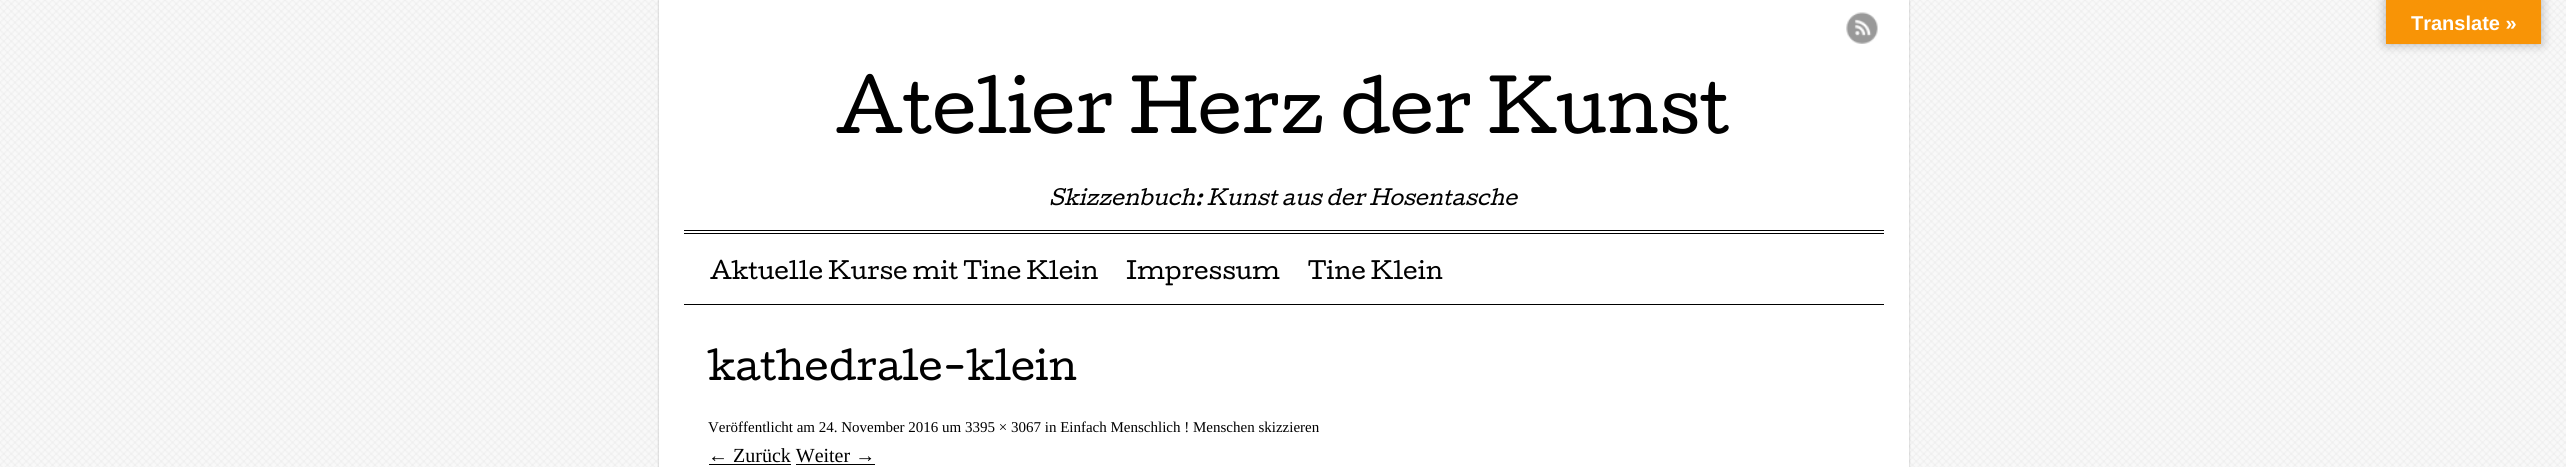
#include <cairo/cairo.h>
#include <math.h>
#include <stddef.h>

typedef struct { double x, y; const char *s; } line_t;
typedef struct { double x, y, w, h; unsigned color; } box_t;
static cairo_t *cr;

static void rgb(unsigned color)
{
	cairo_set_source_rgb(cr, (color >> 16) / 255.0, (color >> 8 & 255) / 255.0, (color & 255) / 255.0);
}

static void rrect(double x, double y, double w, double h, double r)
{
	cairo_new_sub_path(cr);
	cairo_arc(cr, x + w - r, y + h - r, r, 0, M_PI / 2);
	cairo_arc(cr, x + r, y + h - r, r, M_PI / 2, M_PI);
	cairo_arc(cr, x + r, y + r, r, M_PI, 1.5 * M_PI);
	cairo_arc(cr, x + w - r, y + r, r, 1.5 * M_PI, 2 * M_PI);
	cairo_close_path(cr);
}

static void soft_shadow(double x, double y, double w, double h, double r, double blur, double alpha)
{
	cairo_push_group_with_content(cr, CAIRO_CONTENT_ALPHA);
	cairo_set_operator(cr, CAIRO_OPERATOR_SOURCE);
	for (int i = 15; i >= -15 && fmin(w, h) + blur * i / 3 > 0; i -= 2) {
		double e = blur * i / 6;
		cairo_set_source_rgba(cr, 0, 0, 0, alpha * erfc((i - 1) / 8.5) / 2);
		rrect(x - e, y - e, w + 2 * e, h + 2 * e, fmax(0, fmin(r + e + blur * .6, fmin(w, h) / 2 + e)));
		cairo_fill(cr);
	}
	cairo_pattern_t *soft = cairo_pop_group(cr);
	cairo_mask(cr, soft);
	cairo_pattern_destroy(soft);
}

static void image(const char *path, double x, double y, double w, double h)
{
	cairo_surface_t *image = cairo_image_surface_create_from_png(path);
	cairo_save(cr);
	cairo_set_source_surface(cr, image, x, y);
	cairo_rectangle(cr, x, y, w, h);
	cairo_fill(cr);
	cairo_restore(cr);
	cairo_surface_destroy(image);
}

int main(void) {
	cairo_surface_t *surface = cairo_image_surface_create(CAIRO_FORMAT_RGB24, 2566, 467);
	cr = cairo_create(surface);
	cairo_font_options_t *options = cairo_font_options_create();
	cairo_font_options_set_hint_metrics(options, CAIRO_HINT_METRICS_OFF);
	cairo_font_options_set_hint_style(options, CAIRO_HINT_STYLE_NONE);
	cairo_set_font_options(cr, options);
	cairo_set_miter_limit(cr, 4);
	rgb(0xffffff);
	cairo_paint(cr);
	image("img/1.png", 0, 0, 2566, 467);
	rgb(0x000000);
	soft_shadow(2386, 0, 155, 44, 0, 5.5, 0.3);
	rgb(0xf89406);
	cairo_rectangle(cr, 2386, 0, 155, 44);
	cairo_fill(cr);
	rgb(0x000000);
	soft_shadow(658, 0, 1252, 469, 0, 0.5, 0.1);
	rgb(0xffffff);
	cairo_rectangle(cr, 659, 0, 1250, 467);
	cairo_fill(cr);
	rgb(0x000000);
	cairo_rectangle(cr, 684, 304, 1200, 1);
	cairo_fill(cr);
	image("img/2.png", 1846, 12, 32, 32);
	{
		static const box_t items[] = {
			{684, 230, 1200, 1, 0x000000},
			{684, 233, 1200, 1, 0x000000},
			{709, 464, 82, 1, 0x000000},
			{796, 464, 79, 1, 0x000000},
		};
		for (size_t i = 0; i < sizeof items / sizeof *items; i++) {
			rgb(items[i].color);
			cairo_rectangle(cr, items[i].x, items[i].y, items[i].w, items[i].h);
			cairo_fill(cr);
		}
	}
	cairo_select_font_face(cr, "Liberation Sans", CAIRO_FONT_SLANT_NORMAL, CAIRO_FONT_WEIGHT_BOLD);
	cairo_set_font_size(cr, 20);
	rgb(0xffffff);
	cairo_move_to(cr, 2411, 30);
	cairo_show_text(cr, "Translate »");
	cairo_select_font_face(cr, "Cutive", CAIRO_FONT_SLANT_NORMAL, CAIRO_FONT_WEIGHT_NORMAL);
	cairo_set_font_size(cr, 68.75);
	rgb(0x000000);
	cairo_move_to(cr, 836, 133);
	cairo_show_text(cr, "Atelier Herz der Kunst");
	cairo_select_font_face(cr, "Cutive", CAIRO_FONT_SLANT_ITALIC, CAIRO_FONT_WEIGHT_NORMAL);
	cairo_set_font_size(cr, 20);
	cairo_move_to(cr, 1049, 205);
	cairo_show_text(cr, "Skizzenbuch: Kunst aus der Hosentasche");
	cairo_select_font_face(cr, "Cutive", CAIRO_FONT_SLANT_NORMAL, CAIRO_FONT_WEIGHT_NORMAL);
	cairo_set_font_size(cr, 22.5);
	{
		static const line_t items[] = {
			{710, 279, "Aktuelle Kurse mit Tine Klein"},
			{1126, 279, "Impressum"},
			{1308, 279, "Tine Klein"},
		};
		for (size_t i = 0; i < sizeof items / sizeof *items; i++) {
			cairo_move_to(cr, items[i].x, items[i].y);
			cairo_show_text(cr, items[i].s);
		}
	}
	cairo_set_font_size(cr, 37.5);
	cairo_move_to(cr, 708, 380);
	cairo_show_text(cr, "kathedrale-klein");
	cairo_select_font_face(cr, "Liberation Serif", CAIRO_FONT_SLANT_NORMAL, CAIRO_FONT_WEIGHT_NORMAL);
	cairo_set_font_size(cr, 15);
	cairo_move_to(cr, 708, 432);
	cairo_show_text(cr, "Veröffentlicht am 24. November 2016 um 3395 × 3067 in Einfach Menschlich ! Menschen skizzieren");
	cairo_set_font_size(cr, 20);
	cairo_move_to(cr, 708, 462);
	cairo_show_text(cr, "← Zurück Weiter →");
	cairo_surface_write_to_png(surface, "page.png");
	cairo_font_options_destroy(options);
	cairo_destroy(cr);
	cairo_surface_destroy(surface);
	return 0;
}
